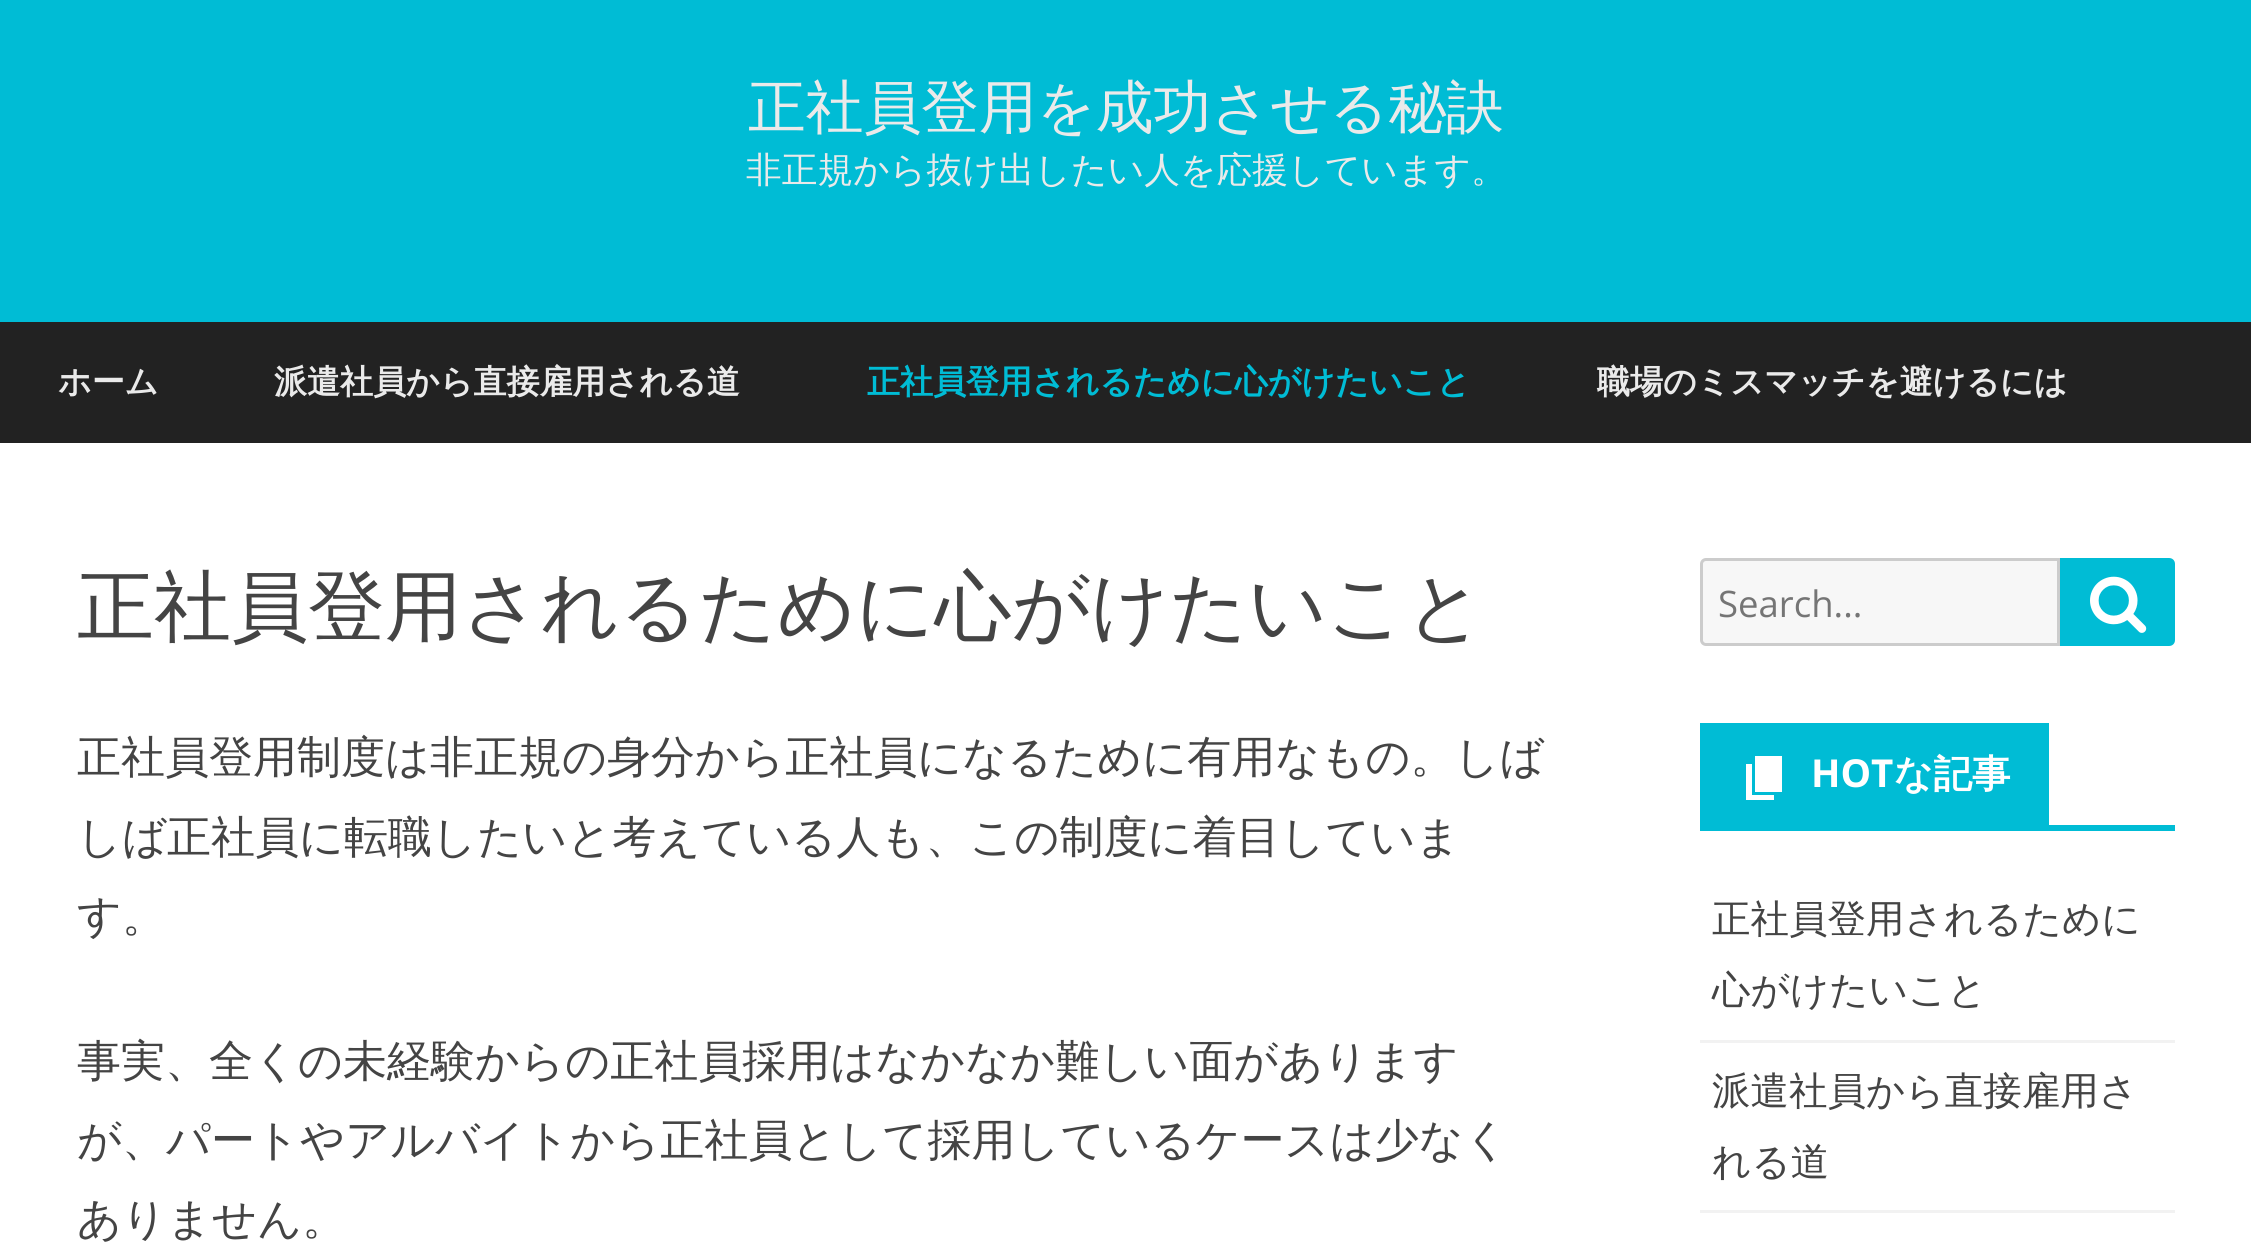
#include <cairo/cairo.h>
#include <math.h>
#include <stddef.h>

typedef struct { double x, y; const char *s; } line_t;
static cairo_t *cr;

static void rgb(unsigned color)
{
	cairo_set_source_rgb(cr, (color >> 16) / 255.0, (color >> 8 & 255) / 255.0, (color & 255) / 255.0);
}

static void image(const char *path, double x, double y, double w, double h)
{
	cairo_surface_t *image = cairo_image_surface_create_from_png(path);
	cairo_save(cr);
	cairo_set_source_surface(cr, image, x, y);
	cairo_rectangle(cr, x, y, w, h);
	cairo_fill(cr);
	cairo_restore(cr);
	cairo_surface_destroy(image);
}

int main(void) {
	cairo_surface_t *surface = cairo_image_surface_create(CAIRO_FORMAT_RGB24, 2251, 1247);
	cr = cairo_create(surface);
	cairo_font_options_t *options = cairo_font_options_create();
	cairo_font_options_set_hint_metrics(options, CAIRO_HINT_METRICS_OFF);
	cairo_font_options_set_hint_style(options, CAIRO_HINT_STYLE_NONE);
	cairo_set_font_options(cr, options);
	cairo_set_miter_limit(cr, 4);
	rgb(0xffffff);
	cairo_paint(cr);
	rgb(0x00bcd5);
	cairo_rectangle(cr, 0, 0, 2251, 322);
	cairo_fill(cr);
	rgb(0x222222);
	cairo_rectangle(cr, 0, 322, 2251, 121);
	cairo_fill(cr);
	rgb(0xf7f7f7);
	cairo_new_path(cr);
	cairo_move_to(cr, 1706, 559.5);
	cairo_line_to(cr, 2058.5, 559.5);
	cairo_line_to(cr, 2058.5, 644.5);
	cairo_line_to(cr, 1706, 644.5);
	cairo_curve_to(cr, 1703.5, 644.5, 1701.5, 642.5, 1701.5, 640);
	cairo_line_to(cr, 1701.5, 564);
	cairo_curve_to(cr, 1701.5, 561.5, 1703.5, 559.5, 1706, 559.5);
	cairo_close_path(cr);
	cairo_fill_preserve(cr);
	rgb(0xcccccc);
	cairo_set_line_width(cr, 3);
	cairo_stroke(cr);
	rgb(0x00bcd5);
	cairo_new_path(cr);
	cairo_move_to(cr, 2060, 558);
	cairo_line_to(cr, 2169, 558);
	cairo_curve_to(cr, 2172.5, 558, 2175, 560.5, 2175, 564);
	cairo_line_to(cr, 2175, 640);
	cairo_curve_to(cr, 2175, 643.5, 2172.5, 646, 2169, 646);
	cairo_line_to(cr, 2060, 646);
	cairo_close_path(cr);
	cairo_fill(cr);
	image("img/1.png", 2090, 576, 57, 57);
	cairo_rectangle(cr, 1700, 825, 475, 6);
	cairo_fill(cr);
	cairo_rectangle(cr, 1700, 723, 349, 102);
	cairo_fill(cr);
	rgb(0xffffff);
	cairo_new_path(cr);
	cairo_move_to(cr, 1755, 792);
	cairo_line_to(cr, 1755, 756);
	cairo_line_to(cr, 1782, 756);
	cairo_line_to(cr, 1782, 792);
	cairo_close_path(cr);
	cairo_move_to(cr, 1752, 795);
	cairo_line_to(cr, 1774, 795);
	cairo_line_to(cr, 1774, 800);
	cairo_line_to(cr, 1746, 800);
	cairo_line_to(cr, 1746, 764);
	cairo_line_to(cr, 1752, 764);
	cairo_close_path(cr);
	cairo_fill(cr);
	rgb(0xf2f2f2);
	cairo_rectangle(cr, 1700, 1040, 475, 3);
	cairo_fill(cr);
	cairo_rectangle(cr, 1700, 1210, 475, 3);
	cairo_fill(cr);
	cairo_select_font_face(cr, "WenQuanYi Zen Hei Medium", CAIRO_FONT_SLANT_NORMAL, CAIRO_FONT_WEIGHT_NORMAL);
	cairo_set_font_size(cr, 57.75);
	rgb(0xeaeaea);
	cairo_move_to(cr, 748, 127);
	cairo_show_text(cr, "正社員登用を成功させる秘訣");
	cairo_set_font_size(cr, 35.75);
	cairo_move_to(cr, 746, 182);
	cairo_show_text(cr, "非正規から抜け出したい人を応援しています。");
	cairo_select_font_face(cr, "WenQuanYi Zen Hei", CAIRO_FONT_SLANT_NORMAL, CAIRO_FONT_WEIGHT_BOLD);
	cairo_set_font_size(cr, 33);
	cairo_move_to(cr, 58, 393);
	cairo_show_text(cr, "ホーム");
	cairo_move_to(cr, 274, 393);
	cairo_show_text(cr, "派遣社員から直接雇用される道");
	rgb(0x00bcd5);
	cairo_move_to(cr, 867, 393);
	cairo_show_text(cr, "正社員登用されるために心がけたいこと");
	rgb(0xeaeaea);
	cairo_move_to(cr, 1597, 393);
	cairo_show_text(cr, "職場のミスマッチを避けるには");
	cairo_select_font_face(cr, "WenQuanYi Zen Hei Medium", CAIRO_FONT_SLANT_NORMAL, CAIRO_FONT_WEIGHT_NORMAL);
	cairo_set_font_size(cr, 77);
	rgb(0x444444);
	cairo_move_to(cr, 77, 633);
	cairo_show_text(cr, "正社員登用されるために心がけたいこと");
	cairo_set_font_size(cr, 44);
	{
		static const line_t items[] = {
			{77, 772, "正社員登用制度は非正規の身分から正社員になるために有用なもの。しば"},
			{77, 852, "しば正社員に転職したいと考えている人も、この制度に着目していま"},
			{77, 931, "す。"},
			{77, 1076, "事実、全くの未経験からの正社員採用はなかなか難しい面があります"},
			{77, 1155, "が、パートやアルバイトから正社員として採用しているケースは少なく"},
			{77, 1234, "ありません。"},
		};
		for (size_t i = 0; i < sizeof items / sizeof *items; i++) {
			cairo_move_to(cr, items[i].x, items[i].y);
			cairo_show_text(cr, items[i].s);
		}
	}
	cairo_select_font_face(cr, "Open Sans", CAIRO_FONT_SLANT_NORMAL, CAIRO_FONT_WEIGHT_NORMAL);
	cairo_set_font_size(cr, 36.5);
	rgb(0x757575);
	cairo_move_to(cr, 1718, 617);
	cairo_show_text(cr, "Search...");
	cairo_select_font_face(cr, "Open Sans", CAIRO_FONT_SLANT_NORMAL, CAIRO_FONT_WEIGHT_BOLD);
	cairo_set_font_size(cr, 38.5);
	rgb(0xffffff);
	cairo_move_to(cr, 1811, 787);
	cairo_show_text(cr, "HOT");
	cairo_select_font_face(cr, "WenQuanYi Zen Hei", CAIRO_FONT_SLANT_NORMAL, CAIRO_FONT_WEIGHT_BOLD);
	cairo_move_to(cr, 1894, 787);
	cairo_show_text(cr, "な記事");
	cairo_select_font_face(cr, "WenQuanYi Zen Hei Medium", CAIRO_FONT_SLANT_NORMAL, CAIRO_FONT_WEIGHT_NORMAL);
	rgb(0x444444);
	{
		static const line_t items[] = {
			{1712, 932, "正社員登用されるために"},
			{1712, 1003, "心がけたいこと"},
			{1712, 1104, "派遣社員から直接雇用さ"},
			{1712, 1175, "れる道"},
		};
		for (size_t i = 0; i < sizeof items / sizeof *items; i++) {
			cairo_move_to(cr, items[i].x, items[i].y);
			cairo_show_text(cr, items[i].s);
		}
	}
	cairo_surface_write_to_png(surface, "page.png");
	cairo_font_options_destroy(options);
	cairo_destroy(cr);
	cairo_surface_destroy(surface);
	return 0;
}
